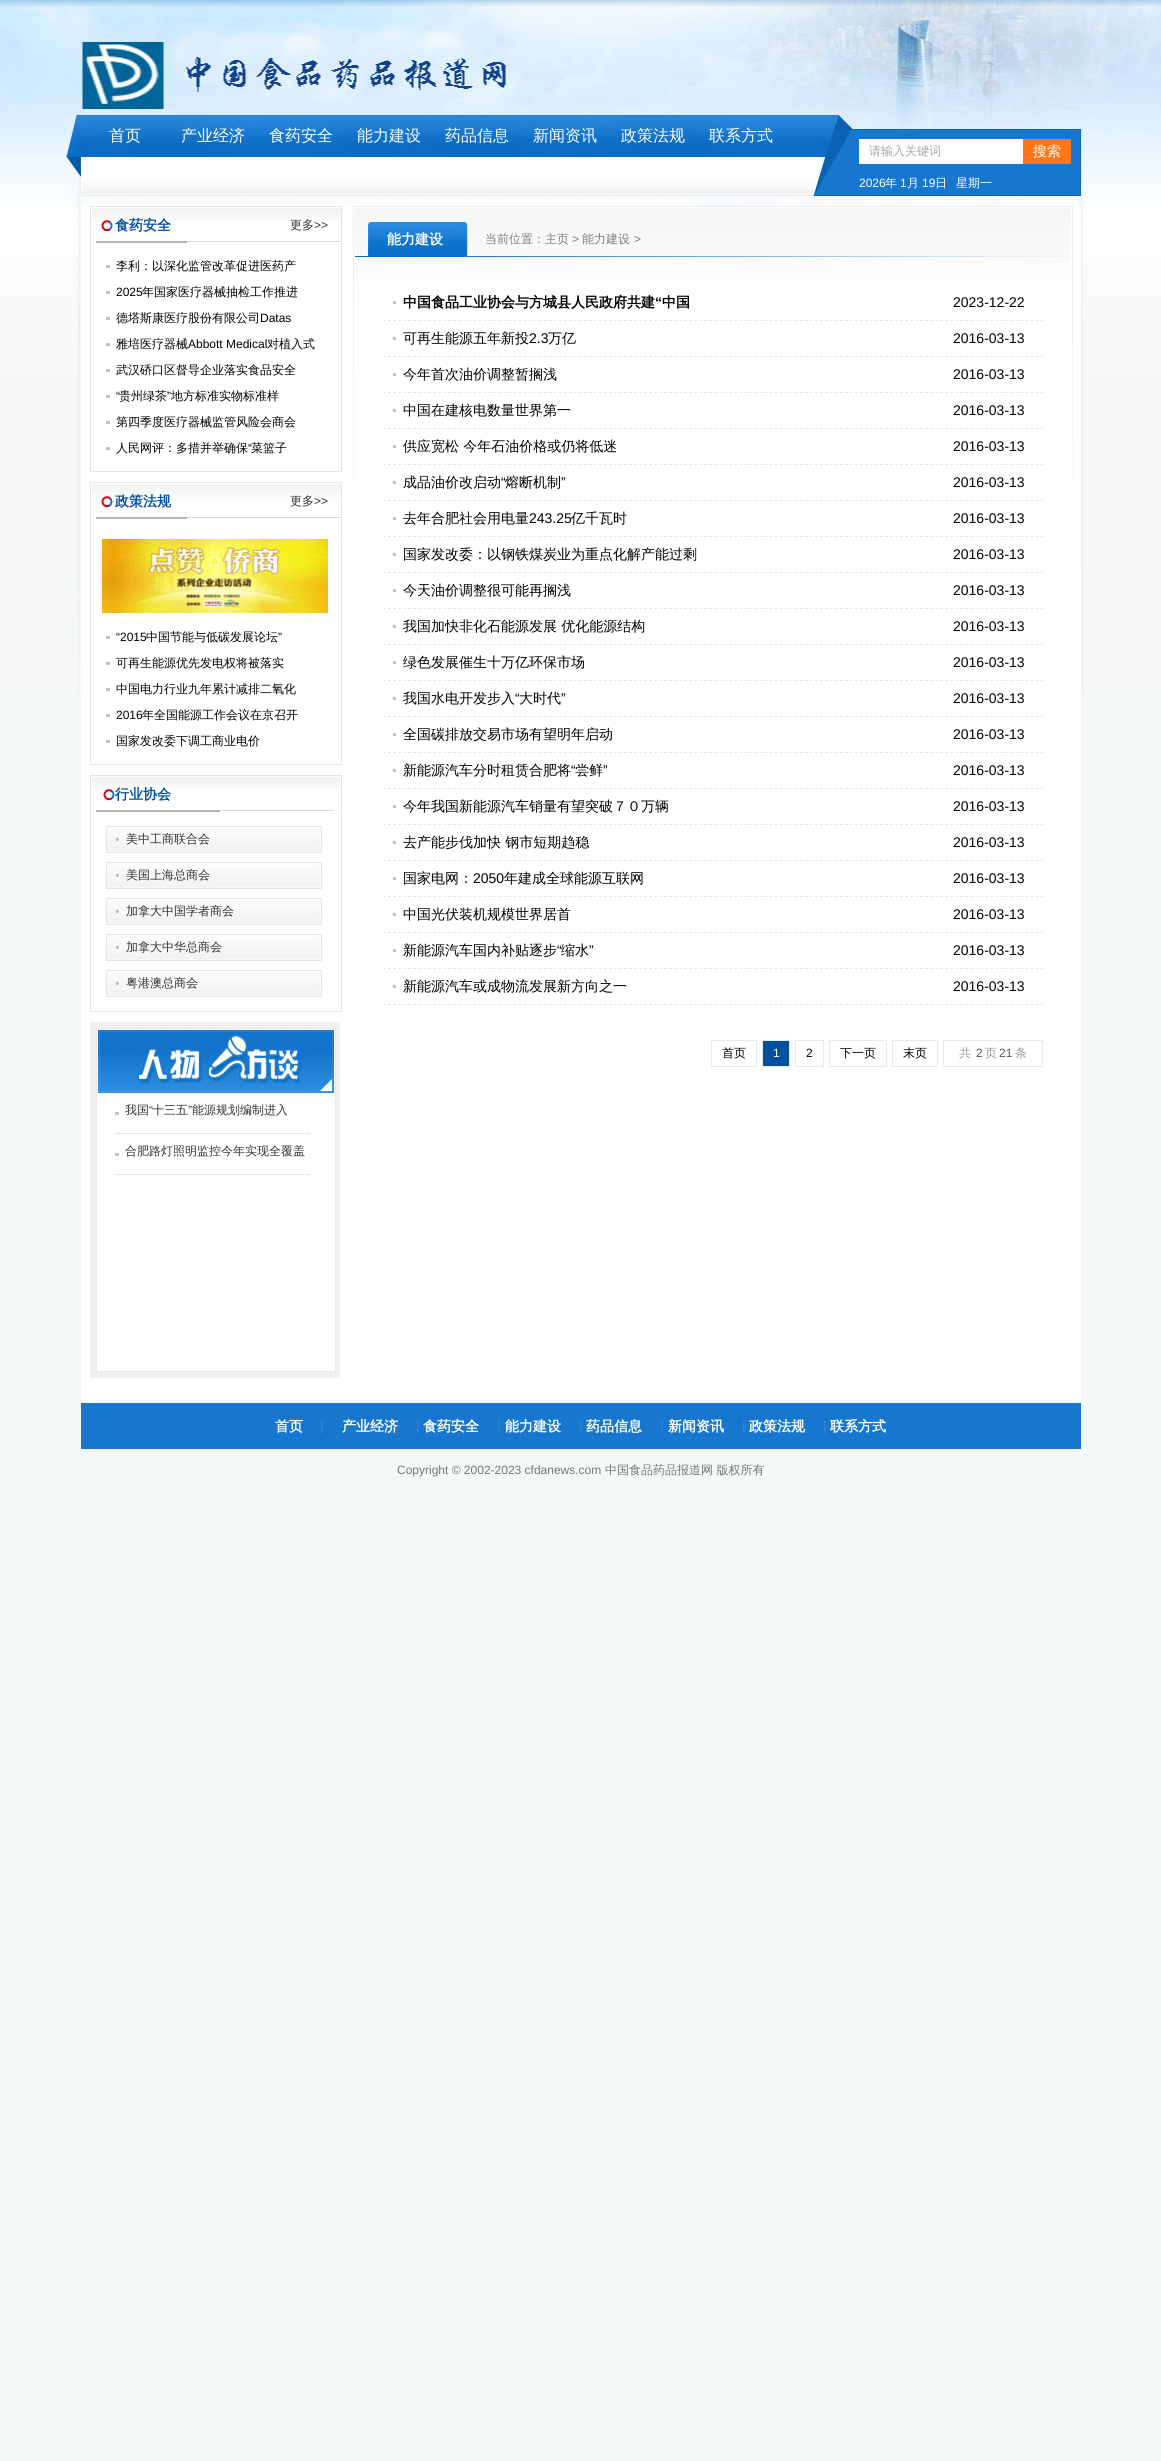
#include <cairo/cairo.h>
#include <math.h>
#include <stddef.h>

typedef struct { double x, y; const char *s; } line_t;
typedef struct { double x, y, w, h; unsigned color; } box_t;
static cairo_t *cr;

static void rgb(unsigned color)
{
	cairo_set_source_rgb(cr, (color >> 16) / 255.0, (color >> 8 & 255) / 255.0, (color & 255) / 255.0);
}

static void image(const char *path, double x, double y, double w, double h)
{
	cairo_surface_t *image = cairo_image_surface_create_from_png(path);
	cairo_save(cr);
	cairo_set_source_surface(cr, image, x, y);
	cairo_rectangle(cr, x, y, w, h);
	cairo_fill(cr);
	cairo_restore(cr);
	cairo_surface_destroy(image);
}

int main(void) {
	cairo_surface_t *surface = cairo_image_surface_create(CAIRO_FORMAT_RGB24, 1161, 2461);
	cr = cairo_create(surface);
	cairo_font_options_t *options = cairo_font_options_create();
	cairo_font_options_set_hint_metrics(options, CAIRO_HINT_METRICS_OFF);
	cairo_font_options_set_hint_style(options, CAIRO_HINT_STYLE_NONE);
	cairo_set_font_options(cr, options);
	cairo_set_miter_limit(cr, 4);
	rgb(0xf5f8f8);
	cairo_paint(cr);
	image("img/1.png", 0, 0, 1161, 692);
	image("img/2.png", 81, 115, 1000, 81);
	image("img/3.png", 66, 115, 15, 81);
	{
		static const box_t items[] = {
			{859, 139, 164, 25, 0xffffff},
			{1023, 139, 48, 25, 0xff761a},
			{81, 206, 1000, 1197, 0xffffff},
		};
		for (size_t i = 0; i < sizeof items / sizeof *items; i++) {
			rgb(items[i].color);
			cairo_rectangle(cr, items[i].x, items[i].y, items[i].w, items[i].h);
			cairo_fill(cr);
		}
	}
	cairo_rectangle(cr, 90.5, 206.5, 251, 265);
	rgb(0xe5e5e5);
	cairo_set_line_width(cr, 1);
	cairo_stroke(cr);
	image("img/4.png", 92, 208, 249, 35);
	{
		static const box_t items[] = {
			{106, 265, 4, 3, 0xc2c2c2},
			{106, 291, 4, 3, 0xc2c2c2},
			{106, 317, 4, 3, 0xc2c2c2},
			{106, 343, 4, 3, 0xc2c2c2},
			{106, 369, 4, 3, 0xc2c2c2},
			{106, 395, 4, 3, 0xc2c2c2},
			{106, 421, 4, 3, 0xc2c2c2},
			{106, 447, 4, 3, 0xc2c2c2},
		};
		for (size_t i = 0; i < sizeof items / sizeof *items; i++) {
			rgb(items[i].color);
			cairo_rectangle(cr, items[i].x, items[i].y, items[i].w, items[i].h);
			cairo_fill(cr);
		}
	}
	cairo_rectangle(cr, 90.5, 482.5, 251, 282);
	rgb(0xe5e5e5);
	cairo_stroke(cr);
	image("img/4.png", 92, 484, 249, 35);
	image("img/5.png", 102, 539, 226, 75);
	{
		static const box_t items[] = {
			{106, 636, 4, 3, 0xc2c2c2},
			{106, 662, 4, 3, 0xc2c2c2},
			{106, 688, 4, 3, 0xc2c2c2},
			{106, 714, 4, 3, 0xc2c2c2},
			{106, 740, 4, 3, 0xc2c2c2},
		};
		for (size_t i = 0; i < sizeof items / sizeof *items; i++) {
			rgb(items[i].color);
			cairo_rectangle(cr, items[i].x, items[i].y, items[i].w, items[i].h);
			cairo_fill(cr);
		}
	}
	cairo_rectangle(cr, 90.5, 775.5, 251, 236);
	rgb(0xe5e5e5);
	cairo_stroke(cr);
	image("img/6.png", 92, 777, 248, 35);
	image("img/7.png", 106, 826, 216, 27);
	rgb(0xc2c2c2);
	cairo_rectangle(cr, 116, 838, 3, 3);
	cairo_fill(cr);
	image("img/7.png", 106, 862, 216, 27);
	cairo_rectangle(cr, 116, 874, 3, 3);
	cairo_fill(cr);
	image("img/7.png", 106, 898, 216, 27);
	cairo_rectangle(cr, 116, 910, 3, 3);
	cairo_fill(cr);
	image("img/7.png", 106, 934, 216, 27);
	cairo_rectangle(cr, 116, 946, 3, 3);
	cairo_fill(cr);
	image("img/7.png", 106, 970, 216, 27);
	cairo_rectangle(cr, 116, 982, 3, 3);
	cairo_fill(cr);
	rgb(0xf2f0f0);
	cairo_rectangle(cr, 90, 1022, 250, 356);
	cairo_fill(cr);
	rgb(0xffffff);
	cairo_rectangle(cr, 96.5, 1028.5, 239, 343);
	cairo_fill_preserve(cr);
	rgb(0xe9e9e9);
	cairo_stroke(cr);
	image("img/8.png", 98, 1030, 236, 63);
	rgb(0xc2c2c2);
	cairo_rectangle(cr, 115, 1112, 4, 3);
	cairo_fill(cr);
	cairo_new_path(cr);
	cairo_move_to(cr, 115, 1133.5);
	cairo_line_to(cr, 311, 1133.5);
	rgb(0xcccccc);
	cairo_set_dash(cr, (double[]){1, 1}, 2, 0);
	cairo_stroke(cr);
	rgb(0xc2c2c2);
	cairo_rectangle(cr, 115, 1153, 4, 3);
	cairo_fill(cr);
	cairo_new_path(cr);
	cairo_move_to(cr, 115, 1174.5);
	cairo_line_to(cr, 311, 1174.5);
	rgb(0xcccccc);
	cairo_stroke(cr);
	image("img/9.png", 353, 206, 720, 280);
	rgb(0xc2c2c2);
	cairo_rectangle(cr, 393, 301, 3, 3);
	cairo_fill(cr);
	cairo_new_path(cr);
	cairo_move_to(cr, 383, 320.5);
	cairo_line_to(cr, 1043, 320.5);
	rgb(0xe5e5e5);
	cairo_set_dash(cr, (double[]){3, 2.02}, 2, 0);
	cairo_stroke(cr);
	rgb(0xc2c2c2);
	cairo_rectangle(cr, 393, 337, 3, 3);
	cairo_fill(cr);
	cairo_new_path(cr);
	cairo_move_to(cr, 383, 356.5);
	cairo_line_to(cr, 1043, 356.5);
	rgb(0xe5e5e5);
	cairo_stroke(cr);
	rgb(0xc2c2c2);
	cairo_rectangle(cr, 393, 373, 3, 3);
	cairo_fill(cr);
	cairo_new_path(cr);
	cairo_move_to(cr, 383, 392.5);
	cairo_line_to(cr, 1043, 392.5);
	rgb(0xe5e5e5);
	cairo_stroke(cr);
	rgb(0xc2c2c2);
	cairo_rectangle(cr, 393, 409, 3, 3);
	cairo_fill(cr);
	cairo_new_path(cr);
	cairo_move_to(cr, 383, 428.5);
	cairo_line_to(cr, 1043, 428.5);
	rgb(0xe5e5e5);
	cairo_stroke(cr);
	rgb(0xc2c2c2);
	cairo_rectangle(cr, 393, 445, 3, 3);
	cairo_fill(cr);
	cairo_new_path(cr);
	cairo_move_to(cr, 383, 464.5);
	cairo_line_to(cr, 1043, 464.5);
	rgb(0xe5e5e5);
	cairo_stroke(cr);
	rgb(0xc2c2c2);
	cairo_rectangle(cr, 393, 481, 3, 3);
	cairo_fill(cr);
	cairo_new_path(cr);
	cairo_move_to(cr, 383, 500.5);
	cairo_line_to(cr, 1043, 500.5);
	rgb(0xe5e5e5);
	cairo_stroke(cr);
	rgb(0xc2c2c2);
	cairo_rectangle(cr, 393, 517, 3, 3);
	cairo_fill(cr);
	cairo_new_path(cr);
	cairo_move_to(cr, 383, 536.5);
	cairo_line_to(cr, 1043, 536.5);
	rgb(0xe5e5e5);
	cairo_stroke(cr);
	rgb(0xc2c2c2);
	cairo_rectangle(cr, 393, 553, 3, 3);
	cairo_fill(cr);
	cairo_new_path(cr);
	cairo_move_to(cr, 383, 572.5);
	cairo_line_to(cr, 1043, 572.5);
	rgb(0xe5e5e5);
	cairo_stroke(cr);
	rgb(0xc2c2c2);
	cairo_rectangle(cr, 393, 589, 3, 3);
	cairo_fill(cr);
	cairo_new_path(cr);
	cairo_move_to(cr, 383, 608.5);
	cairo_line_to(cr, 1043, 608.5);
	rgb(0xe5e5e5);
	cairo_stroke(cr);
	rgb(0xc2c2c2);
	cairo_rectangle(cr, 393, 625, 3, 3);
	cairo_fill(cr);
	cairo_new_path(cr);
	cairo_move_to(cr, 383, 644.5);
	cairo_line_to(cr, 1043, 644.5);
	rgb(0xe5e5e5);
	cairo_stroke(cr);
	rgb(0xc2c2c2);
	cairo_rectangle(cr, 393, 661, 3, 3);
	cairo_fill(cr);
	cairo_new_path(cr);
	cairo_move_to(cr, 383, 680.5);
	cairo_line_to(cr, 1043, 680.5);
	rgb(0xe5e5e5);
	cairo_stroke(cr);
	rgb(0xc2c2c2);
	cairo_rectangle(cr, 393, 697, 3, 3);
	cairo_fill(cr);
	cairo_new_path(cr);
	cairo_move_to(cr, 383, 716.5);
	cairo_line_to(cr, 1043, 716.5);
	rgb(0xe5e5e5);
	cairo_stroke(cr);
	rgb(0xc2c2c2);
	cairo_rectangle(cr, 393, 733, 3, 3);
	cairo_fill(cr);
	cairo_new_path(cr);
	cairo_move_to(cr, 383, 752.5);
	cairo_line_to(cr, 1043, 752.5);
	rgb(0xe5e5e5);
	cairo_stroke(cr);
	rgb(0xc2c2c2);
	cairo_rectangle(cr, 393, 769, 3, 3);
	cairo_fill(cr);
	cairo_new_path(cr);
	cairo_move_to(cr, 383, 788.5);
	cairo_line_to(cr, 1043, 788.5);
	rgb(0xe5e5e5);
	cairo_stroke(cr);
	rgb(0xc2c2c2);
	cairo_rectangle(cr, 393, 805, 3, 3);
	cairo_fill(cr);
	cairo_new_path(cr);
	cairo_move_to(cr, 383, 824.5);
	cairo_line_to(cr, 1043, 824.5);
	rgb(0xe5e5e5);
	cairo_stroke(cr);
	rgb(0xc2c2c2);
	cairo_rectangle(cr, 393, 841, 3, 3);
	cairo_fill(cr);
	cairo_new_path(cr);
	cairo_move_to(cr, 383, 860.5);
	cairo_line_to(cr, 1043, 860.5);
	rgb(0xe5e5e5);
	cairo_stroke(cr);
	rgb(0xc2c2c2);
	cairo_rectangle(cr, 393, 877, 3, 3);
	cairo_fill(cr);
	cairo_new_path(cr);
	cairo_move_to(cr, 383, 896.5);
	cairo_line_to(cr, 1043, 896.5);
	rgb(0xe5e5e5);
	cairo_stroke(cr);
	rgb(0xc2c2c2);
	cairo_rectangle(cr, 393, 913, 3, 3);
	cairo_fill(cr);
	cairo_new_path(cr);
	cairo_move_to(cr, 383, 932.5);
	cairo_line_to(cr, 1043, 932.5);
	rgb(0xe5e5e5);
	cairo_stroke(cr);
	rgb(0xc2c2c2);
	cairo_rectangle(cr, 393, 949, 3, 3);
	cairo_fill(cr);
	cairo_new_path(cr);
	cairo_move_to(cr, 383, 968.5);
	cairo_line_to(cr, 1043, 968.5);
	rgb(0xe5e5e5);
	cairo_stroke(cr);
	rgb(0xc2c2c2);
	cairo_rectangle(cr, 393, 985, 3, 3);
	cairo_fill(cr);
	cairo_new_path(cr);
	cairo_move_to(cr, 383, 1004.5);
	cairo_line_to(cr, 1043, 1004.5);
	rgb(0xe5e5e5);
	cairo_stroke(cr);
	cairo_rectangle(cr, 711.5, 1040.5, 45, 26);
	rgb(0xe9e9e9);
	cairo_set_dash(cr, NULL, 0, 0);
	cairo_stroke(cr);
	rgb(0x0350a0);
	cairo_rectangle(cr, 762.5, 1040.5, 27, 26);
	cairo_fill_preserve(cr);
	rgb(0xe9e9e9);
	cairo_stroke(cr);
	cairo_rectangle(cr, 795.5, 1040.5, 28, 26);
	cairo_stroke(cr);
	cairo_rectangle(cr, 829.5, 1040.5, 57, 26);
	cairo_stroke(cr);
	cairo_rectangle(cr, 892.5, 1040.5, 45, 26);
	cairo_stroke(cr);
	cairo_rectangle(cr, 943.5, 1040.5, 99, 26);
	cairo_stroke(cr);
	rgb(0x1777ce);
	cairo_rectangle(cr, 81, 1403, 1000, 46);
	cairo_fill(cr);
	cairo_select_font_face(cr, "WenQuanYi Zen Hei Medium", CAIRO_FONT_SLANT_NORMAL, CAIRO_FONT_WEIGHT_NORMAL);
	cairo_set_font_size(cr, 16);
	rgb(0xffffff);
	{
		static const line_t items[] = {
			{109, 141, "首页"},
			{181, 141, "产业经济"},
			{269, 141, "食药安全"},
			{357, 141, "能力建设"},
			{445, 141, "药品信息"},
			{533, 141, "新闻资讯"},
			{621, 141, "政策法规"},
			{709, 141, "联系方式"},
		};
		for (size_t i = 0; i < sizeof items / sizeof *items; i++) {
			cairo_move_to(cr, items[i].x, items[i].y);
			cairo_show_text(cr, items[i].s);
		}
	}
	cairo_set_font_size(cr, 12);
	rgb(0xa8a5a5);
	cairo_move_to(cr, 869, 155);
	cairo_show_text(cr, "请输入关键词");
	cairo_set_font_size(cr, 14);
	rgb(0xffffff);
	cairo_move_to(cr, 1033, 156);
	cairo_show_text(cr, "搜索");
	cairo_select_font_face(cr, "Liberation Sans", CAIRO_FONT_SLANT_NORMAL, CAIRO_FONT_WEIGHT_NORMAL);
	cairo_set_font_size(cr, 12);
	cairo_move_to(cr, 859, 187);
	cairo_show_text(cr, "2026");
	cairo_select_font_face(cr, "WenQuanYi Zen Hei Medium", CAIRO_FONT_SLANT_NORMAL, CAIRO_FONT_WEIGHT_NORMAL);
	cairo_move_to(cr, 885, 187);
	cairo_show_text(cr, "年");
	cairo_select_font_face(cr, "Liberation Sans", CAIRO_FONT_SLANT_NORMAL, CAIRO_FONT_WEIGHT_NORMAL);
	cairo_move_to(cr, 900, 187);
	cairo_show_text(cr, "1");
	cairo_select_font_face(cr, "WenQuanYi Zen Hei Medium", CAIRO_FONT_SLANT_NORMAL, CAIRO_FONT_WEIGHT_NORMAL);
	cairo_move_to(cr, 907, 187);
	cairo_show_text(cr, "月");
	cairo_select_font_face(cr, "Liberation Sans", CAIRO_FONT_SLANT_NORMAL, CAIRO_FONT_WEIGHT_NORMAL);
	cairo_move_to(cr, 922, 187);
	cairo_show_text(cr, "19");
	cairo_select_font_face(cr, "WenQuanYi Zen Hei Medium", CAIRO_FONT_SLANT_NORMAL, CAIRO_FONT_WEIGHT_NORMAL);
	cairo_move_to(cr, 935, 187);
	cairo_show_text(cr, "日");
	cairo_move_to(cr, 956, 187);
	cairo_show_text(cr, "星期一");
	cairo_select_font_face(cr, "WenQuanYi Zen Hei", CAIRO_FONT_SLANT_NORMAL, CAIRO_FONT_WEIGHT_BOLD);
	cairo_set_font_size(cr, 14);
	rgb(0x0350a0);
	cairo_move_to(cr, 115, 230);
	cairo_show_text(cr, "食药安全");
	cairo_select_font_face(cr, "WenQuanYi Zen Hei Medium", CAIRO_FONT_SLANT_NORMAL, CAIRO_FONT_WEIGHT_NORMAL);
	cairo_set_font_size(cr, 12);
	rgb(0x333333);
	cairo_move_to(cr, 290, 229);
	cairo_show_text(cr, "更多");
	cairo_select_font_face(cr, "Liberation Sans", CAIRO_FONT_SLANT_NORMAL, CAIRO_FONT_WEIGHT_NORMAL);
	cairo_move_to(cr, 314, 229);
	cairo_show_text(cr, ">>");
	cairo_select_font_face(cr, "WenQuanYi Zen Hei Medium", CAIRO_FONT_SLANT_NORMAL, CAIRO_FONT_WEIGHT_NORMAL);
	rgb(0x000000);
	cairo_move_to(cr, 116, 270);
	cairo_show_text(cr, "李利：以深化监管改革促进医药产");
	cairo_select_font_face(cr, "Liberation Sans", CAIRO_FONT_SLANT_NORMAL, CAIRO_FONT_WEIGHT_NORMAL);
	cairo_move_to(cr, 116, 296);
	cairo_show_text(cr, "2025");
	cairo_select_font_face(cr, "WenQuanYi Zen Hei Medium", CAIRO_FONT_SLANT_NORMAL, CAIRO_FONT_WEIGHT_NORMAL);
	cairo_move_to(cr, 142, 296);
	cairo_show_text(cr, "年国家医疗器械抽检工作推进");
	cairo_move_to(cr, 116, 322);
	cairo_show_text(cr, "德塔斯康医疗股份有限公司");
	cairo_select_font_face(cr, "Liberation Sans", CAIRO_FONT_SLANT_NORMAL, CAIRO_FONT_WEIGHT_NORMAL);
	cairo_move_to(cr, 260, 322);
	cairo_show_text(cr, "Datas");
	cairo_select_font_face(cr, "WenQuanYi Zen Hei Medium", CAIRO_FONT_SLANT_NORMAL, CAIRO_FONT_WEIGHT_NORMAL);
	cairo_move_to(cr, 116, 348);
	cairo_show_text(cr, "雅培医疗器械");
	cairo_select_font_face(cr, "Liberation Sans", CAIRO_FONT_SLANT_NORMAL, CAIRO_FONT_WEIGHT_NORMAL);
	cairo_move_to(cr, 188, 348);
	cairo_show_text(cr, "Abbott Medical");
	cairo_select_font_face(cr, "WenQuanYi Zen Hei Medium", CAIRO_FONT_SLANT_NORMAL, CAIRO_FONT_WEIGHT_NORMAL);
	cairo_move_to(cr, 267, 348);
	cairo_show_text(cr, "对植入式");
	cairo_move_to(cr, 116, 374);
	cairo_show_text(cr, "武汉硚口区督导企业落实食品安全");
	cairo_select_font_face(cr, "Liberation Sans", CAIRO_FONT_SLANT_NORMAL, CAIRO_FONT_WEIGHT_NORMAL);
	cairo_move_to(cr, 116, 400);
	cairo_show_text(cr, "“");
	cairo_select_font_face(cr, "WenQuanYi Zen Hei Medium", CAIRO_FONT_SLANT_NORMAL, CAIRO_FONT_WEIGHT_NORMAL);
	cairo_move_to(cr, 119, 400);
	cairo_show_text(cr, "贵州绿茶");
	cairo_select_font_face(cr, "Liberation Sans", CAIRO_FONT_SLANT_NORMAL, CAIRO_FONT_WEIGHT_NORMAL);
	cairo_move_to(cr, 167, 400);
	cairo_show_text(cr, "”");
	cairo_select_font_face(cr, "WenQuanYi Zen Hei Medium", CAIRO_FONT_SLANT_NORMAL, CAIRO_FONT_WEIGHT_NORMAL);
	{
		static const line_t items[] = {
			{171, 400, "地方标准实物标准样"},
			{116, 426, "第四季度医疗器械监管风险会商会"},
			{116, 452, "人民网评：多措并举确保"},
		};
		for (size_t i = 0; i < sizeof items / sizeof *items; i++) {
			cairo_move_to(cr, items[i].x, items[i].y);
			cairo_show_text(cr, items[i].s);
		}
	}
	cairo_select_font_face(cr, "Liberation Sans", CAIRO_FONT_SLANT_NORMAL, CAIRO_FONT_WEIGHT_NORMAL);
	cairo_move_to(cr, 248, 452);
	cairo_show_text(cr, "“");
	cairo_select_font_face(cr, "WenQuanYi Zen Hei Medium", CAIRO_FONT_SLANT_NORMAL, CAIRO_FONT_WEIGHT_NORMAL);
	cairo_move_to(cr, 251, 452);
	cairo_show_text(cr, "菜篮子");
	cairo_select_font_face(cr, "WenQuanYi Zen Hei", CAIRO_FONT_SLANT_NORMAL, CAIRO_FONT_WEIGHT_BOLD);
	cairo_set_font_size(cr, 14);
	rgb(0x0350a0);
	cairo_move_to(cr, 115, 506);
	cairo_show_text(cr, "政策法规");
	cairo_select_font_face(cr, "WenQuanYi Zen Hei Medium", CAIRO_FONT_SLANT_NORMAL, CAIRO_FONT_WEIGHT_NORMAL);
	cairo_set_font_size(cr, 12);
	rgb(0x333333);
	cairo_move_to(cr, 290, 505);
	cairo_show_text(cr, "更多");
	cairo_select_font_face(cr, "Liberation Sans", CAIRO_FONT_SLANT_NORMAL, CAIRO_FONT_WEIGHT_NORMAL);
	cairo_move_to(cr, 314, 505);
	cairo_show_text(cr, ">>");
	rgb(0x000000);
	cairo_move_to(cr, 116, 641);
	cairo_show_text(cr, "“2015");
	cairo_select_font_face(cr, "WenQuanYi Zen Hei Medium", CAIRO_FONT_SLANT_NORMAL, CAIRO_FONT_WEIGHT_NORMAL);
	cairo_move_to(cr, 146, 641);
	cairo_show_text(cr, "中国节能与低碳发展论坛");
	cairo_select_font_face(cr, "Liberation Sans", CAIRO_FONT_SLANT_NORMAL, CAIRO_FONT_WEIGHT_NORMAL);
	cairo_move_to(cr, 278, 641);
	cairo_show_text(cr, "”");
	cairo_select_font_face(cr, "WenQuanYi Zen Hei Medium", CAIRO_FONT_SLANT_NORMAL, CAIRO_FONT_WEIGHT_NORMAL);
	cairo_move_to(cr, 116, 667);
	cairo_show_text(cr, "可再生能源优先发电权将被落实");
	cairo_move_to(cr, 116, 693);
	cairo_show_text(cr, "中国电力行业九年累计减排二氧化");
	cairo_select_font_face(cr, "Liberation Sans", CAIRO_FONT_SLANT_NORMAL, CAIRO_FONT_WEIGHT_NORMAL);
	cairo_move_to(cr, 116, 719);
	cairo_show_text(cr, "2016");
	cairo_select_font_face(cr, "WenQuanYi Zen Hei Medium", CAIRO_FONT_SLANT_NORMAL, CAIRO_FONT_WEIGHT_NORMAL);
	cairo_move_to(cr, 142, 719);
	cairo_show_text(cr, "年全国能源工作会议在京召开");
	cairo_move_to(cr, 116, 745);
	cairo_show_text(cr, "国家发改委下调工商业电价");
	cairo_select_font_face(cr, "WenQuanYi Zen Hei", CAIRO_FONT_SLANT_NORMAL, CAIRO_FONT_WEIGHT_BOLD);
	cairo_set_font_size(cr, 14);
	rgb(0x0350a0);
	cairo_move_to(cr, 115, 799);
	cairo_show_text(cr, "行业协会");
	cairo_select_font_face(cr, "WenQuanYi Zen Hei Medium", CAIRO_FONT_SLANT_NORMAL, CAIRO_FONT_WEIGHT_NORMAL);
	cairo_set_font_size(cr, 12);
	rgb(0x333333);
	{
		static const line_t items[] = {
			{126, 843, "美中工商联合会"},
			{126, 879, "美国上海总商会"},
			{126, 915, "加拿大中国学者商会"},
			{126, 951, "加拿大中华总商会"},
			{126, 987, "粤港澳总商会"},
			{125, 1114, "我国"},
		};
		for (size_t i = 0; i < sizeof items / sizeof *items; i++) {
			cairo_move_to(cr, items[i].x, items[i].y);
			cairo_show_text(cr, items[i].s);
		}
	}
	cairo_select_font_face(cr, "Liberation Sans", CAIRO_FONT_SLANT_NORMAL, CAIRO_FONT_WEIGHT_NORMAL);
	cairo_move_to(cr, 149, 1114);
	cairo_show_text(cr, "“");
	cairo_select_font_face(cr, "WenQuanYi Zen Hei Medium", CAIRO_FONT_SLANT_NORMAL, CAIRO_FONT_WEIGHT_NORMAL);
	cairo_move_to(cr, 152, 1114);
	cairo_show_text(cr, "十三五");
	cairo_select_font_face(cr, "Liberation Sans", CAIRO_FONT_SLANT_NORMAL, CAIRO_FONT_WEIGHT_NORMAL);
	cairo_move_to(cr, 188, 1114);
	cairo_show_text(cr, "”");
	cairo_select_font_face(cr, "WenQuanYi Zen Hei Medium", CAIRO_FONT_SLANT_NORMAL, CAIRO_FONT_WEIGHT_NORMAL);
	cairo_move_to(cr, 192, 1114);
	cairo_show_text(cr, "能源规划编制进入");
	cairo_move_to(cr, 125, 1155);
	cairo_show_text(cr, "合肥路灯照明监控今年实现全覆盖");
	cairo_select_font_face(cr, "WenQuanYi Zen Hei", CAIRO_FONT_SLANT_NORMAL, CAIRO_FONT_WEIGHT_BOLD);
	cairo_set_font_size(cr, 14);
	rgb(0xffffff);
	cairo_move_to(cr, 387, 244);
	cairo_show_text(cr, "能力建设");
	cairo_select_font_face(cr, "WenQuanYi Zen Hei Medium", CAIRO_FONT_SLANT_NORMAL, CAIRO_FONT_WEIGHT_NORMAL);
	cairo_set_font_size(cr, 12);
	rgb(0x7c7c7c);
	cairo_move_to(cr, 485, 243);
	cairo_show_text(cr, "当前位置：主页");
	cairo_select_font_face(cr, "Liberation Sans", CAIRO_FONT_SLANT_NORMAL, CAIRO_FONT_WEIGHT_NORMAL);
	cairo_move_to(cr, 572, 243);
	cairo_show_text(cr, ">");
	cairo_select_font_face(cr, "WenQuanYi Zen Hei Medium", CAIRO_FONT_SLANT_NORMAL, CAIRO_FONT_WEIGHT_NORMAL);
	cairo_move_to(cr, 582, 243);
	cairo_show_text(cr, "能力建设");
	cairo_select_font_face(cr, "Liberation Sans", CAIRO_FONT_SLANT_NORMAL, CAIRO_FONT_WEIGHT_NORMAL);
	cairo_move_to(cr, 634, 243);
	cairo_show_text(cr, ">");
	cairo_select_font_face(cr, "WenQuanYi Zen Hei", CAIRO_FONT_SLANT_NORMAL, CAIRO_FONT_WEIGHT_BOLD);
	cairo_set_font_size(cr, 14);
	rgb(0x000000);
	cairo_move_to(cr, 403, 307);
	cairo_show_text(cr, "中国食品工业协会与方城县人民政府共建");
	cairo_select_font_face(cr, "Liberation Sans", CAIRO_FONT_SLANT_NORMAL, CAIRO_FONT_WEIGHT_BOLD);
	cairo_move_to(cr, 655, 307);
	cairo_show_text(cr, "“");
	cairo_select_font_face(cr, "WenQuanYi Zen Hei", CAIRO_FONT_SLANT_NORMAL, CAIRO_FONT_WEIGHT_BOLD);
	cairo_move_to(cr, 662, 307);
	cairo_show_text(cr, "中国");
	cairo_select_font_face(cr, "Liberation Sans", CAIRO_FONT_SLANT_NORMAL, CAIRO_FONT_WEIGHT_NORMAL);
	cairo_move_to(cr, 953, 307);
	cairo_show_text(cr, "2023-12-22");
	cairo_select_font_face(cr, "WenQuanYi Zen Hei Medium", CAIRO_FONT_SLANT_NORMAL, CAIRO_FONT_WEIGHT_NORMAL);
	cairo_move_to(cr, 403, 343);
	cairo_show_text(cr, "可再生能源五年新投");
	cairo_select_font_face(cr, "Liberation Sans", CAIRO_FONT_SLANT_NORMAL, CAIRO_FONT_WEIGHT_NORMAL);
	cairo_move_to(cr, 529, 343);
	cairo_show_text(cr, "2.3");
	cairo_select_font_face(cr, "WenQuanYi Zen Hei Medium", CAIRO_FONT_SLANT_NORMAL, CAIRO_FONT_WEIGHT_NORMAL);
	cairo_move_to(cr, 548, 343);
	cairo_show_text(cr, "万亿");
	cairo_select_font_face(cr, "Liberation Sans", CAIRO_FONT_SLANT_NORMAL, CAIRO_FONT_WEIGHT_NORMAL);
	cairo_move_to(cr, 953, 343);
	cairo_show_text(cr, "2016-03-13");
	cairo_select_font_face(cr, "WenQuanYi Zen Hei Medium", CAIRO_FONT_SLANT_NORMAL, CAIRO_FONT_WEIGHT_NORMAL);
	cairo_move_to(cr, 403, 379);
	cairo_show_text(cr, "今年首次油价调整暂搁浅");
	cairo_select_font_face(cr, "Liberation Sans", CAIRO_FONT_SLANT_NORMAL, CAIRO_FONT_WEIGHT_NORMAL);
	cairo_move_to(cr, 953, 379);
	cairo_show_text(cr, "2016-03-13");
	cairo_select_font_face(cr, "WenQuanYi Zen Hei Medium", CAIRO_FONT_SLANT_NORMAL, CAIRO_FONT_WEIGHT_NORMAL);
	cairo_move_to(cr, 403, 415);
	cairo_show_text(cr, "中国在建核电数量世界第一");
	cairo_select_font_face(cr, "Liberation Sans", CAIRO_FONT_SLANT_NORMAL, CAIRO_FONT_WEIGHT_NORMAL);
	cairo_move_to(cr, 953, 415);
	cairo_show_text(cr, "2016-03-13");
	cairo_select_font_face(cr, "WenQuanYi Zen Hei Medium", CAIRO_FONT_SLANT_NORMAL, CAIRO_FONT_WEIGHT_NORMAL);
	cairo_move_to(cr, 403, 451);
	cairo_show_text(cr, "供应宽松 今年石油价格或仍将低迷");
	cairo_select_font_face(cr, "Liberation Sans", CAIRO_FONT_SLANT_NORMAL, CAIRO_FONT_WEIGHT_NORMAL);
	cairo_move_to(cr, 953, 451);
	cairo_show_text(cr, "2016-03-13");
	cairo_select_font_face(cr, "WenQuanYi Zen Hei Medium", CAIRO_FONT_SLANT_NORMAL, CAIRO_FONT_WEIGHT_NORMAL);
	cairo_move_to(cr, 403, 487);
	cairo_show_text(cr, "成品油价改启动");
	cairo_select_font_face(cr, "Liberation Sans", CAIRO_FONT_SLANT_NORMAL, CAIRO_FONT_WEIGHT_NORMAL);
	cairo_move_to(cr, 501, 487);
	cairo_show_text(cr, "“");
	cairo_select_font_face(cr, "WenQuanYi Zen Hei Medium", CAIRO_FONT_SLANT_NORMAL, CAIRO_FONT_WEIGHT_NORMAL);
	cairo_move_to(cr, 505, 487);
	cairo_show_text(cr, "熔断机制");
	cairo_select_font_face(cr, "Liberation Sans", CAIRO_FONT_SLANT_NORMAL, CAIRO_FONT_WEIGHT_NORMAL);
	cairo_move_to(cr, 561, 487);
	cairo_show_text(cr, "”");
	cairo_move_to(cr, 953, 487);
	cairo_show_text(cr, "2016-03-13");
	cairo_select_font_face(cr, "WenQuanYi Zen Hei Medium", CAIRO_FONT_SLANT_NORMAL, CAIRO_FONT_WEIGHT_NORMAL);
	cairo_move_to(cr, 403, 523);
	cairo_show_text(cr, "去年合肥社会用电量");
	cairo_select_font_face(cr, "Liberation Sans", CAIRO_FONT_SLANT_NORMAL, CAIRO_FONT_WEIGHT_NORMAL);
	cairo_move_to(cr, 529, 523);
	cairo_show_text(cr, "243.25");
	cairo_select_font_face(cr, "WenQuanYi Zen Hei Medium", CAIRO_FONT_SLANT_NORMAL, CAIRO_FONT_WEIGHT_NORMAL);
	cairo_move_to(cr, 571, 523);
	cairo_show_text(cr, "亿千瓦时");
	cairo_select_font_face(cr, "Liberation Sans", CAIRO_FONT_SLANT_NORMAL, CAIRO_FONT_WEIGHT_NORMAL);
	cairo_move_to(cr, 953, 523);
	cairo_show_text(cr, "2016-03-13");
	cairo_select_font_face(cr, "WenQuanYi Zen Hei Medium", CAIRO_FONT_SLANT_NORMAL, CAIRO_FONT_WEIGHT_NORMAL);
	cairo_move_to(cr, 403, 559);
	cairo_show_text(cr, "国家发改委：以钢铁煤炭业为重点化解产能过剩");
	cairo_select_font_face(cr, "Liberation Sans", CAIRO_FONT_SLANT_NORMAL, CAIRO_FONT_WEIGHT_NORMAL);
	cairo_move_to(cr, 953, 559);
	cairo_show_text(cr, "2016-03-13");
	cairo_select_font_face(cr, "WenQuanYi Zen Hei Medium", CAIRO_FONT_SLANT_NORMAL, CAIRO_FONT_WEIGHT_NORMAL);
	cairo_move_to(cr, 403, 595);
	cairo_show_text(cr, "今天油价调整很可能再搁浅");
	cairo_select_font_face(cr, "Liberation Sans", CAIRO_FONT_SLANT_NORMAL, CAIRO_FONT_WEIGHT_NORMAL);
	cairo_move_to(cr, 953, 595);
	cairo_show_text(cr, "2016-03-13");
	cairo_select_font_face(cr, "WenQuanYi Zen Hei Medium", CAIRO_FONT_SLANT_NORMAL, CAIRO_FONT_WEIGHT_NORMAL);
	cairo_move_to(cr, 403, 631);
	cairo_show_text(cr, "我国加快非化石能源发展 优化能源结构");
	cairo_select_font_face(cr, "Liberation Sans", CAIRO_FONT_SLANT_NORMAL, CAIRO_FONT_WEIGHT_NORMAL);
	cairo_move_to(cr, 953, 631);
	cairo_show_text(cr, "2016-03-13");
	cairo_save(cr);
	cairo_rectangle(cr, 403, 645, 550, 35);
	cairo_clip(cr);
	cairo_select_font_face(cr, "WenQuanYi Zen Hei Medium", CAIRO_FONT_SLANT_NORMAL, CAIRO_FONT_WEIGHT_NORMAL);
	cairo_move_to(cr, 403, 667);
	cairo_show_text(cr, "绿色发展催生十万亿环保市场");
	cairo_restore(cr);
	cairo_move_to(cr, 953, 667);
	cairo_show_text(cr, "2016-03-13");
	cairo_select_font_face(cr, "WenQuanYi Zen Hei Medium", CAIRO_FONT_SLANT_NORMAL, CAIRO_FONT_WEIGHT_NORMAL);
	cairo_move_to(cr, 403, 703);
	cairo_show_text(cr, "我国水电开发步入");
	cairo_select_font_face(cr, "Liberation Sans", CAIRO_FONT_SLANT_NORMAL, CAIRO_FONT_WEIGHT_NORMAL);
	cairo_move_to(cr, 515, 703);
	cairo_show_text(cr, "“");
	cairo_select_font_face(cr, "WenQuanYi Zen Hei Medium", CAIRO_FONT_SLANT_NORMAL, CAIRO_FONT_WEIGHT_NORMAL);
	cairo_move_to(cr, 519, 703);
	cairo_show_text(cr, "大时代");
	cairo_select_font_face(cr, "Liberation Sans", CAIRO_FONT_SLANT_NORMAL, CAIRO_FONT_WEIGHT_NORMAL);
	cairo_move_to(cr, 561, 703);
	cairo_show_text(cr, "”");
	cairo_move_to(cr, 953, 703);
	cairo_show_text(cr, "2016-03-13");
	cairo_select_font_face(cr, "WenQuanYi Zen Hei Medium", CAIRO_FONT_SLANT_NORMAL, CAIRO_FONT_WEIGHT_NORMAL);
	cairo_move_to(cr, 403, 739);
	cairo_show_text(cr, "全国碳排放交易市场有望明年启动");
	cairo_select_font_face(cr, "Liberation Sans", CAIRO_FONT_SLANT_NORMAL, CAIRO_FONT_WEIGHT_NORMAL);
	cairo_move_to(cr, 953, 739);
	cairo_show_text(cr, "2016-03-13");
	cairo_select_font_face(cr, "WenQuanYi Zen Hei Medium", CAIRO_FONT_SLANT_NORMAL, CAIRO_FONT_WEIGHT_NORMAL);
	cairo_move_to(cr, 403, 775);
	cairo_show_text(cr, "新能源汽车分时租赁合肥将");
	cairo_select_font_face(cr, "Liberation Sans", CAIRO_FONT_SLANT_NORMAL, CAIRO_FONT_WEIGHT_NORMAL);
	cairo_move_to(cr, 571, 775);
	cairo_show_text(cr, "“");
	cairo_select_font_face(cr, "WenQuanYi Zen Hei Medium", CAIRO_FONT_SLANT_NORMAL, CAIRO_FONT_WEIGHT_NORMAL);
	cairo_move_to(cr, 575, 775);
	cairo_show_text(cr, "尝鲜");
	cairo_select_font_face(cr, "Liberation Sans", CAIRO_FONT_SLANT_NORMAL, CAIRO_FONT_WEIGHT_NORMAL);
	cairo_move_to(cr, 603, 775);
	cairo_show_text(cr, "”");
	cairo_move_to(cr, 953, 775);
	cairo_show_text(cr, "2016-03-13");
	cairo_select_font_face(cr, "WenQuanYi Zen Hei Medium", CAIRO_FONT_SLANT_NORMAL, CAIRO_FONT_WEIGHT_NORMAL);
	cairo_move_to(cr, 403, 811);
	cairo_show_text(cr, "今年我国新能源汽车销量有望突破７０万辆");
	cairo_select_font_face(cr, "Liberation Sans", CAIRO_FONT_SLANT_NORMAL, CAIRO_FONT_WEIGHT_NORMAL);
	cairo_move_to(cr, 953, 811);
	cairo_show_text(cr, "2016-03-13");
	cairo_select_font_face(cr, "WenQuanYi Zen Hei Medium", CAIRO_FONT_SLANT_NORMAL, CAIRO_FONT_WEIGHT_NORMAL);
	cairo_move_to(cr, 403, 847);
	cairo_show_text(cr, "去产能步伐加快 钢市短期趋稳");
	cairo_select_font_face(cr, "Liberation Sans", CAIRO_FONT_SLANT_NORMAL, CAIRO_FONT_WEIGHT_NORMAL);
	cairo_move_to(cr, 953, 847);
	cairo_show_text(cr, "2016-03-13");
	cairo_select_font_face(cr, "WenQuanYi Zen Hei Medium", CAIRO_FONT_SLANT_NORMAL, CAIRO_FONT_WEIGHT_NORMAL);
	cairo_move_to(cr, 403, 883);
	cairo_show_text(cr, "国家电网：");
	cairo_select_font_face(cr, "Liberation Sans", CAIRO_FONT_SLANT_NORMAL, CAIRO_FONT_WEIGHT_NORMAL);
	cairo_move_to(cr, 473, 883);
	cairo_show_text(cr, "2050");
	cairo_select_font_face(cr, "WenQuanYi Zen Hei Medium", CAIRO_FONT_SLANT_NORMAL, CAIRO_FONT_WEIGHT_NORMAL);
	cairo_move_to(cr, 504, 883);
	cairo_show_text(cr, "年建成全球能源互联网");
	cairo_select_font_face(cr, "Liberation Sans", CAIRO_FONT_SLANT_NORMAL, CAIRO_FONT_WEIGHT_NORMAL);
	cairo_move_to(cr, 953, 883);
	cairo_show_text(cr, "2016-03-13");
	cairo_select_font_face(cr, "WenQuanYi Zen Hei Medium", CAIRO_FONT_SLANT_NORMAL, CAIRO_FONT_WEIGHT_NORMAL);
	cairo_move_to(cr, 403, 919);
	cairo_show_text(cr, "中国光伏装机规模世界居首");
	cairo_select_font_face(cr, "Liberation Sans", CAIRO_FONT_SLANT_NORMAL, CAIRO_FONT_WEIGHT_NORMAL);
	cairo_move_to(cr, 953, 919);
	cairo_show_text(cr, "2016-03-13");
	cairo_select_font_face(cr, "WenQuanYi Zen Hei Medium", CAIRO_FONT_SLANT_NORMAL, CAIRO_FONT_WEIGHT_NORMAL);
	cairo_move_to(cr, 403, 955);
	cairo_show_text(cr, "新能源汽车国内补贴逐步");
	cairo_select_font_face(cr, "Liberation Sans", CAIRO_FONT_SLANT_NORMAL, CAIRO_FONT_WEIGHT_NORMAL);
	cairo_move_to(cr, 557, 955);
	cairo_show_text(cr, "“");
	cairo_select_font_face(cr, "WenQuanYi Zen Hei Medium", CAIRO_FONT_SLANT_NORMAL, CAIRO_FONT_WEIGHT_NORMAL);
	cairo_move_to(cr, 561, 955);
	cairo_show_text(cr, "缩水");
	cairo_select_font_face(cr, "Liberation Sans", CAIRO_FONT_SLANT_NORMAL, CAIRO_FONT_WEIGHT_NORMAL);
	cairo_move_to(cr, 589, 955);
	cairo_show_text(cr, "”");
	cairo_move_to(cr, 953, 955);
	cairo_show_text(cr, "2016-03-13");
	cairo_select_font_face(cr, "WenQuanYi Zen Hei Medium", CAIRO_FONT_SLANT_NORMAL, CAIRO_FONT_WEIGHT_NORMAL);
	cairo_move_to(cr, 403, 991);
	cairo_show_text(cr, "新能源汽车或成物流发展新方向之一");
	cairo_select_font_face(cr, "Liberation Sans", CAIRO_FONT_SLANT_NORMAL, CAIRO_FONT_WEIGHT_NORMAL);
	cairo_move_to(cr, 953, 991);
	cairo_show_text(cr, "2016-03-13");
	cairo_select_font_face(cr, "WenQuanYi Zen Hei Medium", CAIRO_FONT_SLANT_NORMAL, CAIRO_FONT_WEIGHT_NORMAL);
	cairo_set_font_size(cr, 12);
	cairo_move_to(cr, 722, 1057);
	cairo_show_text(cr, "首页");
	cairo_select_font_face(cr, "Liberation Sans", CAIRO_FONT_SLANT_NORMAL, CAIRO_FONT_WEIGHT_NORMAL);
	rgb(0xffffff);
	cairo_move_to(cr, 773, 1057);
	cairo_show_text(cr, "1");
	rgb(0x000000);
	cairo_move_to(cr, 806, 1057);
	cairo_show_text(cr, "2");
	cairo_select_font_face(cr, "WenQuanYi Zen Hei Medium", CAIRO_FONT_SLANT_NORMAL, CAIRO_FONT_WEIGHT_NORMAL);
	cairo_move_to(cr, 840, 1057);
	cairo_show_text(cr, "下一页");
	cairo_move_to(cr, 903, 1057);
	cairo_show_text(cr, "末页");
	rgb(0x999999);
	cairo_move_to(cr, 959, 1057);
	cairo_show_text(cr, "共");
	cairo_select_font_face(cr, "Liberation Sans", CAIRO_FONT_SLANT_NORMAL, CAIRO_FONT_WEIGHT_NORMAL);
	rgb(0x555555);
	cairo_move_to(cr, 976, 1057);
	cairo_show_text(cr, "2");
	cairo_select_font_face(cr, "WenQuanYi Zen Hei Medium", CAIRO_FONT_SLANT_NORMAL, CAIRO_FONT_WEIGHT_NORMAL);
	rgb(0x999999);
	cairo_move_to(cr, 985, 1057);
	cairo_show_text(cr, "页");
	cairo_select_font_face(cr, "Liberation Sans", CAIRO_FONT_SLANT_NORMAL, CAIRO_FONT_WEIGHT_NORMAL);
	rgb(0x555555);
	cairo_move_to(cr, 999, 1057);
	cairo_show_text(cr, "21");
	cairo_select_font_face(cr, "WenQuanYi Zen Hei Medium", CAIRO_FONT_SLANT_NORMAL, CAIRO_FONT_WEIGHT_NORMAL);
	rgb(0x999999);
	cairo_move_to(cr, 1015, 1057);
	cairo_show_text(cr, "条");
	cairo_select_font_face(cr, "WenQuanYi Zen Hei", CAIRO_FONT_SLANT_NORMAL, CAIRO_FONT_WEIGHT_BOLD);
	cairo_set_font_size(cr, 14);
	rgb(0xffffff);
	cairo_move_to(cr, 275, 1431);
	cairo_show_text(cr, "首页");
	cairo_select_font_face(cr, "Liberation Sans", CAIRO_FONT_SLANT_NORMAL, CAIRO_FONT_WEIGHT_NORMAL);
	rgb(0x3388d4);
	cairo_move_to(cr, 320, 1431);
	cairo_show_text(cr, "|");
	cairo_select_font_face(cr, "WenQuanYi Zen Hei", CAIRO_FONT_SLANT_NORMAL, CAIRO_FONT_WEIGHT_BOLD);
	rgb(0xffffff);
	cairo_move_to(cr, 342, 1431);
	cairo_show_text(cr, "产业经济");
	cairo_select_font_face(cr, "Liberation Sans", CAIRO_FONT_SLANT_NORMAL, CAIRO_FONT_WEIGHT_NORMAL);
	rgb(0x3388d4);
	cairo_move_to(cr, 416, 1431);
	cairo_show_text(cr, "|");
	cairo_select_font_face(cr, "WenQuanYi Zen Hei", CAIRO_FONT_SLANT_NORMAL, CAIRO_FONT_WEIGHT_BOLD);
	rgb(0xffffff);
	cairo_move_to(cr, 423, 1431);
	cairo_show_text(cr, "食药安全");
	cairo_select_font_face(cr, "Liberation Sans", CAIRO_FONT_SLANT_NORMAL, CAIRO_FONT_WEIGHT_NORMAL);
	rgb(0x3388d4);
	cairo_move_to(cr, 497, 1431);
	cairo_show_text(cr, "|");
	cairo_select_font_face(cr, "WenQuanYi Zen Hei", CAIRO_FONT_SLANT_NORMAL, CAIRO_FONT_WEIGHT_BOLD);
	rgb(0xffffff);
	cairo_move_to(cr, 505, 1431);
	cairo_show_text(cr, "能力建设");
	cairo_select_font_face(cr, "Liberation Sans", CAIRO_FONT_SLANT_NORMAL, CAIRO_FONT_WEIGHT_NORMAL);
	rgb(0x3388d4);
	cairo_move_to(cr, 579, 1431);
	cairo_show_text(cr, "|");
	cairo_select_font_face(cr, "WenQuanYi Zen Hei", CAIRO_FONT_SLANT_NORMAL, CAIRO_FONT_WEIGHT_BOLD);
	rgb(0xffffff);
	cairo_move_to(cr, 586, 1431);
	cairo_show_text(cr, "药品信息");
	cairo_select_font_face(cr, "Liberation Sans", CAIRO_FONT_SLANT_NORMAL, CAIRO_FONT_WEIGHT_NORMAL);
	rgb(0x3388d4);
	cairo_move_to(cr, 660, 1431);
	cairo_show_text(cr, "|");
	cairo_select_font_face(cr, "WenQuanYi Zen Hei", CAIRO_FONT_SLANT_NORMAL, CAIRO_FONT_WEIGHT_BOLD);
	rgb(0xffffff);
	cairo_move_to(cr, 668, 1431);
	cairo_show_text(cr, "新闻资讯");
	cairo_select_font_face(cr, "Liberation Sans", CAIRO_FONT_SLANT_NORMAL, CAIRO_FONT_WEIGHT_NORMAL);
	rgb(0x3388d4);
	cairo_move_to(cr, 742, 1431);
	cairo_show_text(cr, "|");
	cairo_select_font_face(cr, "WenQuanYi Zen Hei", CAIRO_FONT_SLANT_NORMAL, CAIRO_FONT_WEIGHT_BOLD);
	rgb(0xffffff);
	cairo_move_to(cr, 749, 1431);
	cairo_show_text(cr, "政策法规");
	cairo_select_font_face(cr, "Liberation Sans", CAIRO_FONT_SLANT_NORMAL, CAIRO_FONT_WEIGHT_NORMAL);
	rgb(0x3388d4);
	cairo_move_to(cr, 823, 1431);
	cairo_show_text(cr, "|");
	cairo_select_font_face(cr, "WenQuanYi Zen Hei", CAIRO_FONT_SLANT_NORMAL, CAIRO_FONT_WEIGHT_BOLD);
	rgb(0xffffff);
	cairo_move_to(cr, 830, 1431);
	cairo_show_text(cr, "联系方式");
	cairo_select_font_face(cr, "Liberation Sans", CAIRO_FONT_SLANT_NORMAL, CAIRO_FONT_WEIGHT_NORMAL);
	cairo_set_font_size(cr, 12);
	rgb(0x757575);
	cairo_move_to(cr, 397, 1474);
	cairo_show_text(cr, "Copyright © 2002-2023 cfdanews.com");
	cairo_select_font_face(cr, "WenQuanYi Zen Hei Medium", CAIRO_FONT_SLANT_NORMAL, CAIRO_FONT_WEIGHT_NORMAL);
	cairo_move_to(cr, 605, 1474);
	cairo_show_text(cr, "中国食品药品报道网 版权所有");
	cairo_surface_write_to_png(surface, "page.png");
	cairo_font_options_destroy(options);
	cairo_destroy(cr);
	cairo_surface_destroy(surface);
	return 0;
}
